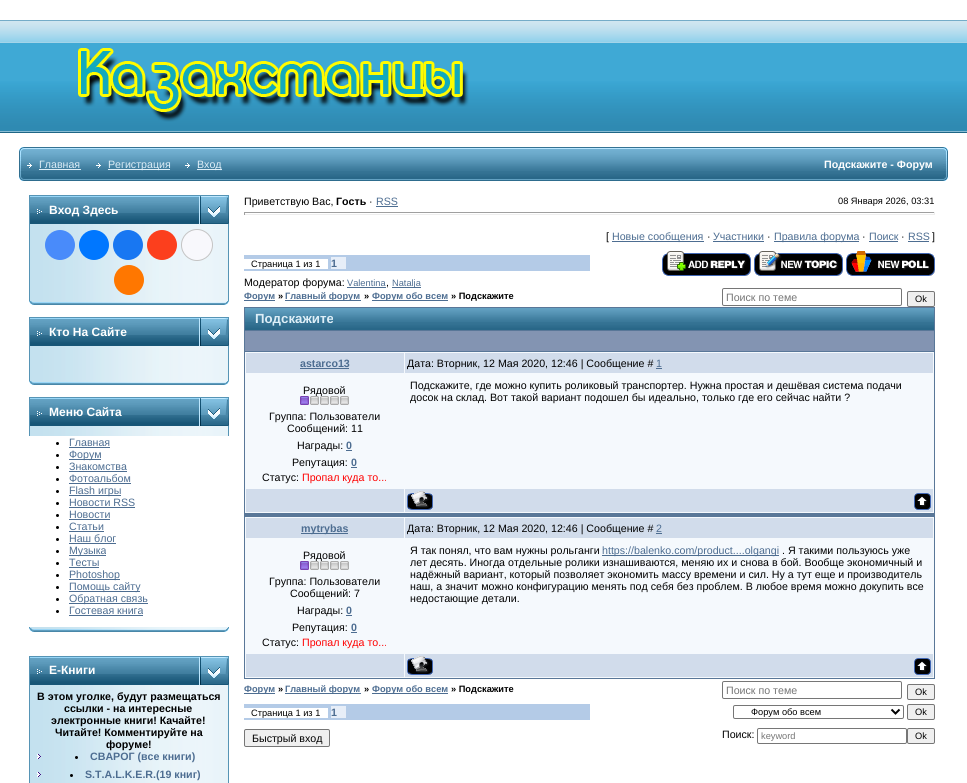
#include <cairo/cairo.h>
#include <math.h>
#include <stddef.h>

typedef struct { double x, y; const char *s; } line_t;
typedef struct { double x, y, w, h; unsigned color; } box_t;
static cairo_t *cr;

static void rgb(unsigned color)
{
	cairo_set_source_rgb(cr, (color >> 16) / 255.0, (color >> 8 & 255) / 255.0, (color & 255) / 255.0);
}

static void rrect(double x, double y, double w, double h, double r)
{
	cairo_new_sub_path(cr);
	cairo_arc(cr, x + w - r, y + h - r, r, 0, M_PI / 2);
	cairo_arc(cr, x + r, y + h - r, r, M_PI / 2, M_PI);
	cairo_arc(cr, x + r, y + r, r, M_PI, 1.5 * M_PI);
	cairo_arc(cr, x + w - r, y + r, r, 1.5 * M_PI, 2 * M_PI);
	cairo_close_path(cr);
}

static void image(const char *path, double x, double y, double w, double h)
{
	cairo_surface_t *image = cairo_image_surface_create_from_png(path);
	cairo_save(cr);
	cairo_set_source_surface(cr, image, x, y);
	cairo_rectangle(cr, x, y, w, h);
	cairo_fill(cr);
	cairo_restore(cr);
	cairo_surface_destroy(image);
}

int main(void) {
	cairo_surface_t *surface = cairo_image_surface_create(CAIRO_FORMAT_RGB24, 967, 783);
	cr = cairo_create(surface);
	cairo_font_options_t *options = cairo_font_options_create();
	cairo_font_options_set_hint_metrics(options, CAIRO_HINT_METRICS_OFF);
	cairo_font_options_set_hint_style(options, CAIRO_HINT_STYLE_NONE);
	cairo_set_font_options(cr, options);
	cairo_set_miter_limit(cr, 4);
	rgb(0xffffff);
	cairo_paint(cr);
	image("img/1.png", 0, 20, 967, 113);
	image("img/2.png", 78, 48, 391, 74);
	image("img/3.png", 19, 147, 5, 34);
	image("img/4.png", 24, 147, 643, 34);
	image("img/5.png", 27, 163, 5, 5);
	rgb(0xddeef7);
	cairo_rectangle(cr, 39, 169, 42, 1);
	cairo_fill(cr);
	image("img/5.png", 96, 163, 5, 5);
	cairo_rectangle(cr, 108, 169, 62, 1);
	cairo_fill(cr);
	image("img/5.png", 185, 163, 5, 5);
	cairo_rectangle(cr, 197, 169, 25, 1);
	cairo_fill(cr);
	image("img/6.png", 667, 147, 276, 34);
	image("img/7.png", 943, 147, 5, 34);
	image("img/8.png", 30, 195, 169, 29);
	rgb(0x5694b5);
	cairo_rectangle(cr, 29, 195, 1, 29);
	cairo_fill(cr);
	image("img/9.png", 37, 209, 5, 5);
	image("img/10.png", 199, 195, 30, 1);
	image("img/11.png", 199, 196, 30, 28);
	image("img/12.png", 29, 224, 200, 76);
	rgb(0x498bfa);
	cairo_arc(cr, 60, 245, 15, 0, 2 * M_PI);
	cairo_fill(cr);
	rgb(0x0077ff);
	cairo_arc(cr, 94, 245, 15, 0, 2 * M_PI);
	cairo_fill(cr);
	rgb(0x1877f2);
	cairo_arc(cr, 128, 245, 15, 0, 2 * M_PI);
	cairo_fill(cr);
	rgb(0xfc3f1d);
	cairo_arc(cr, 162, 245, 15, 0, 2 * M_PI);
	cairo_fill(cr);
	rgb(0xf8f8fc);
	cairo_arc(cr, 197, 245, 15.5, 0, 2 * M_PI);
	cairo_fill_preserve(cr);
	rgb(0xc4c4c4);
	cairo_set_line_width(cr, 1);
	cairo_stroke(cr);
	rgb(0xff7700);
	cairo_arc(cr, 129, 280, 15, 0, 2 * M_PI);
	cairo_fill(cr);
	image("img/13.png", 29, 300, 200, 5);
	image("img/8.png", 30, 317, 169, 29);
	rgb(0x5694b5);
	cairo_rectangle(cr, 29, 317, 1, 29);
	cairo_fill(cr);
	image("img/9.png", 37, 331, 5, 5);
	image("img/10.png", 199, 317, 30, 1);
	image("img/11.png", 199, 318, 30, 28);
	image("img/14.png", 29, 346, 200, 34);
	image("img/13.png", 29, 380, 200, 5);
	image("img/8.png", 30, 397, 169, 29);
	cairo_rectangle(cr, 29, 397, 1, 29);
	cairo_fill(cr);
	image("img/9.png", 37, 411, 5, 5);
	image("img/10.png", 199, 397, 30, 1);
	image("img/11.png", 199, 398, 30, 28);
	image("img/15.png", 29, 426, 200, 10);
	rgb(0x000000);
	cairo_arc(cr, 57.5, 443.5, 1.5, 0, 2 * M_PI);
	cairo_fill(cr);
	rgb(0x4d6d91);
	cairo_rectangle(cr, 69, 447, 41, 1);
	cairo_fill(cr);
	rgb(0x000000);
	cairo_arc(cr, 57.5, 455.5, 1.5, 0, 2 * M_PI);
	cairo_fill(cr);
	rgb(0x4d6d91);
	cairo_rectangle(cr, 69, 459, 32, 1);
	cairo_fill(cr);
	rgb(0x000000);
	cairo_arc(cr, 57.5, 467.5, 1.5, 0, 2 * M_PI);
	cairo_fill(cr);
	rgb(0x4d6d91);
	cairo_rectangle(cr, 69, 471, 58, 1);
	cairo_fill(cr);
	rgb(0x000000);
	cairo_arc(cr, 57.5, 479.5, 1.5, 0, 2 * M_PI);
	cairo_fill(cr);
	rgb(0x4d6d91);
	cairo_rectangle(cr, 69, 483, 62, 1);
	cairo_fill(cr);
	rgb(0x000000);
	cairo_arc(cr, 57.5, 491.5, 1.5, 0, 2 * M_PI);
	cairo_fill(cr);
	rgb(0x4d6d91);
	cairo_rectangle(cr, 69, 495, 52, 1);
	cairo_fill(cr);
	rgb(0x000000);
	cairo_arc(cr, 57.5, 503.5, 1.5, 0, 2 * M_PI);
	cairo_fill(cr);
	rgb(0x4d6d91);
	cairo_rectangle(cr, 69, 507, 66, 1);
	cairo_fill(cr);
	rgb(0x000000);
	cairo_arc(cr, 57.5, 515.5, 1.5, 0, 2 * M_PI);
	cairo_fill(cr);
	rgb(0x4d6d91);
	cairo_rectangle(cr, 69, 519, 41, 1);
	cairo_fill(cr);
	rgb(0x000000);
	cairo_arc(cr, 57.5, 527.5, 1.5, 0, 2 * M_PI);
	cairo_fill(cr);
	rgb(0x4d6d91);
	cairo_rectangle(cr, 69, 531, 35, 1);
	cairo_fill(cr);
	rgb(0x000000);
	cairo_arc(cr, 57.5, 539.5, 1.5, 0, 2 * M_PI);
	cairo_fill(cr);
	rgb(0x4d6d91);
	cairo_rectangle(cr, 69, 543, 47, 1);
	cairo_fill(cr);
	rgb(0x000000);
	cairo_arc(cr, 57.5, 551.5, 1.5, 0, 2 * M_PI);
	cairo_fill(cr);
	rgb(0x4d6d91);
	cairo_rectangle(cr, 69, 555, 37, 1);
	cairo_fill(cr);
	rgb(0x000000);
	cairo_arc(cr, 57.5, 563.5, 1.5, 0, 2 * M_PI);
	cairo_fill(cr);
	rgb(0x4d6d91);
	cairo_rectangle(cr, 69, 567, 30, 1);
	cairo_fill(cr);
	rgb(0x000000);
	cairo_arc(cr, 57.5, 575.5, 1.5, 0, 2 * M_PI);
	cairo_fill(cr);
	rgb(0x4d6d91);
	cairo_rectangle(cr, 69, 579, 51, 1);
	cairo_fill(cr);
	rgb(0x000000);
	cairo_arc(cr, 57.5, 587.5, 1.5, 0, 2 * M_PI);
	cairo_fill(cr);
	rgb(0x4d6d91);
	cairo_rectangle(cr, 69, 591, 71, 1);
	cairo_fill(cr);
	rgb(0x000000);
	cairo_arc(cr, 57.5, 599.5, 1.5, 0, 2 * M_PI);
	cairo_fill(cr);
	rgb(0x4d6d91);
	cairo_rectangle(cr, 69, 603, 79, 1);
	cairo_fill(cr);
	rgb(0x000000);
	cairo_arc(cr, 57.5, 611.5, 1.5, 0, 2 * M_PI);
	cairo_fill(cr);
	rgb(0x4d6d91);
	cairo_rectangle(cr, 69, 615, 74, 1);
	cairo_fill(cr);
	image("img/13.png", 29, 627, 200, 5);
	image("img/8.png", 30, 656, 169, 29);
	rgb(0x5694b5);
	cairo_rectangle(cr, 29, 656, 1, 29);
	cairo_fill(cr);
	image("img/16.png", 37, 669, 5, 5);
	image("img/10.png", 199, 656, 30, 1);
	image("img/11.png", 199, 657, 30, 28);
	image("img/17.png", 29, 685, 200, 98);
	image("img/18.png", 37, 754, 4, 5);
	rgb(0x000000);
	cairo_arc(cr, 76.5, 757.5, 1.5, 0, 2 * M_PI);
	cairo_fill(cr);
	image("img/18.png", 37, 772, 4, 5);
	cairo_arc(cr, 71.5, 775.5, 1.5, 0, 2 * M_PI);
	cairo_fill(cr);
	{
		static const box_t items[] = {
			{376, 206, 22, 1, 0x4d6d91},
			{244, 212, 691, 1, 0x9f9f9f},
			{934, 212, 1, 3, 0xeeeeee},
			{244, 214, 691, 1, 0xeeeeee},
			{244, 212, 1, 3, 0x9f9f9f},
			{612, 241, 92, 1, 0x4d6d91},
			{713, 241, 51, 1, 0x4d6d91},
			{774, 241, 85, 1, 0x4d6d91},
			{869, 241, 29, 1, 0x4d6d91},
			{908, 241, 21, 1, 0x4d6d91},
			{244, 255, 346, 16, 0xb4cbe7},
			{244, 259, 84, 10, 0xffffff},
			{331, 257, 15, 12, 0xe7eef8},
		};
		for (size_t i = 0; i < sizeof items / sizeof *items; i++) {
			rgb(items[i].color);
			cairo_rectangle(cr, items[i].x, items[i].y, items[i].w, items[i].h);
			cairo_fill(cr);
		}
	}
	image("img/19.png", 662, 251, 89, 25);
	image("img/20.png", 754, 251, 89, 25);
	image("img/21.png", 846, 251, 89, 25);
	{
		static const box_t items[] = {
			{347, 287, 39, 1, 0x4d6d91},
			{392, 287, 29, 1, 0x4d6d91},
			{244, 300, 31, 1, 0x4d6d91},
			{285, 300, 76, 1, 0x4d6d91},
			{372, 300, 76, 1, 0x4d6d91},
		};
		for (size_t i = 0; i < sizeof items / sizeof *items; i++) {
			rgb(items[i].color);
			cairo_rectangle(cr, items[i].x, items[i].y, items[i].w, items[i].h);
			cairo_fill(cr);
		}
	}
	rrect(722.5, 288.5, 179, 17, 1.5);
	rgb(0x767676);
	cairo_stroke(cr);
	rgb(0xefefef);
	rrect(907.5, 291.5, 27, 15, 1.5);
	cairo_fill_preserve(cr);
	rgb(0x767676);
	cairo_stroke(cr);
	rgb(0x597798);
	cairo_rectangle(cr, 244, 307, 691, 372);
	cairo_fill(cr);
	image("img/22.png", 245, 308, 689, 22);
	{
		static const box_t items[] = {
			{245, 331, 689, 20, 0x8394b2},
			{245, 352, 689, 161, 0xf5f9fd},
			{246, 353, 158, 20, 0xd1dceb},
			{300, 368, 49, 1, 0x4d6d91},
			{405, 353, 528, 20, 0xd1dceb},
			{656, 368, 6, 1, 0x4d6d91},
			{346, 450, 6, 1, 0x4d6d91},
			{351, 467, 6, 1, 0x4d6d91},
			{246, 489, 158, 23, 0xd1dceb},
			{405, 489, 528, 23, 0xd1dceb},
		};
		for (size_t i = 0; i < sizeof items / sizeof *items; i++) {
			rgb(items[i].color);
			cairo_rectangle(cr, items[i].x, items[i].y, items[i].w, items[i].h);
			cairo_fill(cr);
		}
	}
	image("img/24.png", 407, 491, 26, 19);
	image("img/25.png", 914, 493, 17, 17);
	{
		static const box_t items[] = {
			{245, 517, 689, 161, 0xf5f9fd},
			{246, 518, 158, 20, 0xd1dceb},
			{301, 533, 47, 1, 0x4d6d91},
			{405, 518, 528, 20, 0xd1dceb},
			{656, 533, 6, 1, 0x4d6d91},
			{346, 615, 6, 1, 0x4d6d91},
			{351, 632, 6, 1, 0x4d6d91},
			{602, 555, 177, 1, 0x4d6d91},
			{246, 654, 158, 23, 0xd1dceb},
			{405, 654, 528, 23, 0xd1dceb},
		};
		for (size_t i = 0; i < sizeof items / sizeof *items; i++) {
			rgb(items[i].color);
			cairo_rectangle(cr, items[i].x, items[i].y, items[i].w, items[i].h);
			cairo_fill(cr);
		}
	}
	image("img/24.png", 407, 656, 26, 19);
	image("img/25.png", 914, 658, 17, 17);
	{
		static const box_t items[] = {
			{244, 693, 31, 1, 0x4d6d91},
			{285, 693, 76, 1, 0x4d6d91},
			{372, 693, 76, 1, 0x4d6d91},
		};
		for (size_t i = 0; i < sizeof items / sizeof *items; i++) {
			rgb(items[i].color);
			cairo_rectangle(cr, items[i].x, items[i].y, items[i].w, items[i].h);
			cairo_fill(cr);
		}
	}
	rrect(722.5, 681.5, 179, 17, 1.5);
	rgb(0x767676);
	cairo_stroke(cr);
	rgb(0xefefef);
	rrect(907.5, 684.5, 27, 15, 1.5);
	cairo_fill_preserve(cr);
	rgb(0x767676);
	cairo_stroke(cr);
	{
		static const box_t items[] = {
			{244, 704, 346, 16, 0xb4cbe7},
			{244, 708, 84, 10, 0xffffff},
			{331, 706, 15, 12, 0xe7eef8},
		};
		for (size_t i = 0; i < sizeof items / sizeof *items; i++) {
			rgb(items[i].color);
			cairo_rectangle(cr, items[i].x, items[i].y, items[i].w, items[i].h);
			cairo_fill(cr);
		}
	}
	rrect(733.5, 705.5, 170, 13, 1.5);
	rgb(0x767676);
	cairo_stroke(cr);
	cairo_new_path(cr);
	cairo_move_to(cr, 891.5, 709.5);
	cairo_line_to(cr, 895.5, 713.5);
	cairo_line_to(cr, 899.5, 709.5);
	rgb(0x000000);
	cairo_set_line_width(cr, 2);
	cairo_stroke(cr);
	rgb(0xefefef);
	rrect(907.5, 704.5, 27, 15, 1.5);
	cairo_fill_preserve(cr);
	rgb(0x767676);
	cairo_set_line_width(cr, 1);
	cairo_stroke(cr);
	rgb(0xefefef);
	rrect(244.5, 729.5, 85, 17, 1.5);
	cairo_fill_preserve(cr);
	rgb(0x767676);
	cairo_stroke(cr);
	rrect(757.5, 728.5, 149, 15, 1.5);
	cairo_stroke(cr);
	rgb(0xefefef);
	rrect(907.5, 728.5, 27, 15, 1.5);
	cairo_fill_preserve(cr);
	rgb(0x767676);
	cairo_stroke(cr);
	cairo_select_font_face(cr, "Liberation Sans", CAIRO_FONT_SLANT_NORMAL, CAIRO_FONT_WEIGHT_NORMAL);
	cairo_set_font_size(cr, 10.65);
	rgb(0xddeef7);
	{
		static const line_t items[] = {
			{39, 168, "Главная"},
			{108, 168, "Регистрация"},
			{197, 168, "Вход"},
		};
		for (size_t i = 0; i < sizeof items / sizeof *items; i++) {
			cairo_move_to(cr, items[i].x, items[i].y);
			cairo_show_text(cr, items[i].s);
		}
	}
	cairo_select_font_face(cr, "Liberation Sans", CAIRO_FONT_SLANT_NORMAL, CAIRO_FONT_WEIGHT_BOLD);
	rgb(0xffffff);
	cairo_move_to(cr, 824, 168);
	cairo_show_text(cr, "Подскажите - Форум");
	cairo_set_font_size(cr, 12);
	{
		static const line_t items[] = {
			{49, 214, "Вход Здесь"},
			{49, 336, "Кто На Сайте"},
			{49, 416, "Меню Сайта"},
		};
		for (size_t i = 0; i < sizeof items / sizeof *items; i++) {
			cairo_move_to(cr, items[i].x, items[i].y);
			cairo_show_text(cr, items[i].s);
		}
	}
	cairo_select_font_face(cr, "Liberation Sans", CAIRO_FONT_SLANT_NORMAL, CAIRO_FONT_WEIGHT_NORMAL);
	cairo_set_font_size(cr, 10.65);
	rgb(0x4d6d91);
	{
		static const line_t items[] = {
			{69, 446, "Главная"},
			{69, 458, "Форум"},
			{69, 470, "Знакомства"},
			{69, 482, "Фотоальбом"},
			{69, 494, "Flash игры"},
			{69, 506, "Новости RSS"},
			{69, 518, "Новости"},
			{69, 530, "Статьи"},
			{69, 542, "Наш блог"},
			{69, 554, "Музыка"},
			{69, 566, "Тесты"},
			{69, 578, "Photoshop"},
			{69, 590, "Помощь сайту"},
			{69, 602, "Обратная связь"},
			{69, 614, "Гостевая книга"},
		};
		for (size_t i = 0; i < sizeof items / sizeof *items; i++) {
			cairo_move_to(cr, items[i].x, items[i].y);
			cairo_show_text(cr, items[i].s);
		}
	}
	cairo_select_font_face(cr, "Liberation Sans", CAIRO_FONT_SLANT_NORMAL, CAIRO_FONT_WEIGHT_BOLD);
	cairo_set_font_size(cr, 12);
	rgb(0xffffff);
	cairo_move_to(cr, 49, 674);
	cairo_show_text(cr, "E-Книги");
	cairo_set_font_size(cr, 10.65);
	rgb(0x000000);
	{
		static const line_t items[] = {
			{37, 700, "В этом уголке, будут размещаться"},
			{64, 712, "ссылки - на интересные"},
			{51, 724, "электронные книги! Качайте!"},
			{55, 736, "Читайте! Комментируйте на"},
			{106, 748, "форуме!"},
		};
		for (size_t i = 0; i < sizeof items / sizeof *items; i++) {
			cairo_move_to(cr, items[i].x, items[i].y);
			cairo_show_text(cr, items[i].s);
		}
	}
	rgb(0x4d6d91);
	cairo_move_to(cr, 90, 760);
	cairo_show_text(cr, "СВАРОГ (все книги)");
	cairo_move_to(cr, 85, 778);
	cairo_show_text(cr, "S.T.A.L.K.E.R.(19 книг)");
	cairo_select_font_face(cr, "Liberation Sans", CAIRO_FONT_SLANT_NORMAL, CAIRO_FONT_WEIGHT_NORMAL);
	rgb(0x000000);
	cairo_move_to(cr, 244, 205);
	cairo_show_text(cr, "Приветствую Вас,");
	cairo_select_font_face(cr, "Liberation Sans", CAIRO_FONT_SLANT_NORMAL, CAIRO_FONT_WEIGHT_BOLD);
	cairo_move_to(cr, 336, 205);
	cairo_show_text(cr, "Гость");
	cairo_select_font_face(cr, "Liberation Sans", CAIRO_FONT_SLANT_NORMAL, CAIRO_FONT_WEIGHT_NORMAL);
	cairo_move_to(cr, 369, 205);
	cairo_show_text(cr, "·");
	rgb(0x4d6d91);
	cairo_move_to(cr, 376, 205);
	cairo_show_text(cr, "RSS");
	cairo_set_font_size(cr, 9.25);
	rgb(0x000000);
	cairo_move_to(cr, 838, 204);
	cairo_show_text(cr, "08 Января 2026, 03:31");
	cairo_set_font_size(cr, 10.65);
	cairo_move_to(cr, 606, 240);
	cairo_show_text(cr, "[");
	rgb(0x4d6d91);
	cairo_move_to(cr, 612, 240);
	cairo_show_text(cr, "Новые сообщения");
	rgb(0x000000);
	cairo_move_to(cr, 707, 240);
	cairo_show_text(cr, "·");
	rgb(0x4d6d91);
	cairo_move_to(cr, 713, 240);
	cairo_show_text(cr, "Участники");
	rgb(0x000000);
	cairo_move_to(cr, 767, 240);
	cairo_show_text(cr, "·");
	rgb(0x4d6d91);
	cairo_move_to(cr, 774, 240);
	cairo_show_text(cr, "Правила форума");
	rgb(0x000000);
	cairo_move_to(cr, 862, 240);
	cairo_show_text(cr, "·");
	rgb(0x4d6d91);
	cairo_move_to(cr, 869, 240);
	cairo_show_text(cr, "Поиск");
	rgb(0x000000);
	cairo_move_to(cr, 901, 240);
	cairo_show_text(cr, "·");
	rgb(0x4d6d91);
	cairo_move_to(cr, 908, 240);
	cairo_show_text(cr, "RSS");
	rgb(0x000000);
	cairo_move_to(cr, 932, 240);
	cairo_show_text(cr, "]");
	cairo_set_font_size(cr, 9.25);
	cairo_move_to(cr, 251, 267);
	cairo_show_text(cr, "Страница 1 из 1");
	cairo_select_font_face(cr, "Liberation Sans", CAIRO_FONT_SLANT_NORMAL, CAIRO_FONT_WEIGHT_BOLD);
	cairo_set_font_size(cr, 10.65);
	rgb(0x4d6d91);
	cairo_move_to(cr, 331, 267);
	cairo_show_text(cr, "1");
	cairo_select_font_face(cr, "Liberation Sans", CAIRO_FONT_SLANT_NORMAL, CAIRO_FONT_WEIGHT_NORMAL);
	rgb(0x000000);
	cairo_move_to(cr, 244, 286);
	cairo_show_text(cr, "Модератор форума:");
	cairo_set_font_size(cr, 9.25);
	rgb(0x4d6d91);
	cairo_move_to(cr, 347, 286);
	cairo_show_text(cr, "Valentina");
	cairo_set_font_size(cr, 10.65);
	rgb(0x000000);
	cairo_move_to(cr, 386, 286);
	cairo_show_text(cr, ",");
	cairo_set_font_size(cr, 9.25);
	rgb(0x4d6d91);
	cairo_move_to(cr, 392, 286);
	cairo_show_text(cr, "Natalja");
	cairo_select_font_face(cr, "Liberation Sans", CAIRO_FONT_SLANT_NORMAL, CAIRO_FONT_WEIGHT_BOLD);
	cairo_move_to(cr, 244, 299);
	cairo_show_text(cr, "Форум");
	rgb(0x000000);
	cairo_move_to(cr, 278, 299);
	cairo_show_text(cr, "»");
	rgb(0x4d6d91);
	cairo_move_to(cr, 285, 299);
	cairo_show_text(cr, "Главный форум");
	rgb(0x000000);
	cairo_move_to(cr, 364, 299);
	cairo_show_text(cr, "»");
	rgb(0x4d6d91);
	cairo_move_to(cr, 372, 299);
	cairo_show_text(cr, "Форум обо всем");
	rgb(0x000000);
	cairo_move_to(cr, 451, 299);
	cairo_show_text(cr, "» Подскажите");
	cairo_select_font_face(cr, "Liberation Sans", CAIRO_FONT_SLANT_NORMAL, CAIRO_FONT_WEIGHT_NORMAL);
	cairo_set_font_size(cr, 10.65);
	rgb(0x757575);
	cairo_move_to(cr, 726, 301);
	cairo_show_text(cr, "Поиск по теме");
	cairo_set_font_size(cr, 9.25);
	rgb(0x000000);
	cairo_move_to(cr, 915, 302);
	cairo_show_text(cr, "Ok");
	cairo_select_font_face(cr, "Liberation Sans", CAIRO_FONT_SLANT_NORMAL, CAIRO_FONT_WEIGHT_BOLD);
	cairo_set_font_size(cr, 13.25);
	rgb(0xddeef7);
	cairo_move_to(cr, 255, 323);
	cairo_show_text(cr, "Подскажите");
	cairo_set_font_size(cr, 10.65);
	rgb(0x4d6d91);
	cairo_move_to(cr, 300, 367);
	cairo_show_text(cr, "astarco13");
	cairo_select_font_face(cr, "Liberation Sans", CAIRO_FONT_SLANT_NORMAL, CAIRO_FONT_WEIGHT_NORMAL);
	rgb(0x000000);
	cairo_move_to(cr, 407, 367);
	cairo_show_text(cr, "Дата: Вторник, 12 Мая 2020, 12:46 | Сообщение #");
	rgb(0x4d6d91);
	cairo_move_to(cr, 656, 367);
	cairo_show_text(cr, "1");
	rgb(0x000000);
	cairo_move_to(cr, 303, 394);
	cairo_show_text(cr, "Рядовой");
	image("img/23.png", 300, 396, 49, 9);
	{
		static const line_t items[] = {
			{269, 420, "Группа: Пользователи"},
			{287, 432, "Сообщений: 11"},
			{297, 449, "Награды:"},
		};
		for (size_t i = 0; i < sizeof items / sizeof *items; i++) {
			cairo_move_to(cr, items[i].x, items[i].y);
			cairo_show_text(cr, items[i].s);
		}
	}
	cairo_select_font_face(cr, "Liberation Sans", CAIRO_FONT_SLANT_NORMAL, CAIRO_FONT_WEIGHT_BOLD);
	rgb(0x4d6d91);
	cairo_move_to(cr, 346, 449);
	cairo_show_text(cr, "0");
	cairo_select_font_face(cr, "Liberation Sans", CAIRO_FONT_SLANT_NORMAL, CAIRO_FONT_WEIGHT_NORMAL);
	rgb(0x000000);
	cairo_move_to(cr, 292, 466);
	cairo_show_text(cr, "Репутация:");
	cairo_select_font_face(cr, "Liberation Sans", CAIRO_FONT_SLANT_NORMAL, CAIRO_FONT_WEIGHT_BOLD);
	rgb(0x4d6d91);
	cairo_move_to(cr, 351, 466);
	cairo_show_text(cr, "0");
	cairo_select_font_face(cr, "Liberation Sans", CAIRO_FONT_SLANT_NORMAL, CAIRO_FONT_WEIGHT_NORMAL);
	rgb(0x000000);
	cairo_move_to(cr, 262, 481);
	cairo_show_text(cr, "Статус:");
	rgb(0xff0000);
	cairo_move_to(cr, 302, 481);
	cairo_show_text(cr, "Пропал куда то...");
	rgb(0x000000);
	cairo_move_to(cr, 410, 389);
	cairo_show_text(cr, "Подскажите, где можно купить роликовый транспортер. Нужна простая и дешёвая система подачи");
	cairo_move_to(cr, 410, 401);
	cairo_show_text(cr, "досок на склад. Вот такой вариант подошел бы идеально, только где его сейчас найти ?");
	cairo_select_font_face(cr, "Liberation Sans", CAIRO_FONT_SLANT_NORMAL, CAIRO_FONT_WEIGHT_BOLD);
	rgb(0x4d6d91);
	cairo_move_to(cr, 301, 532);
	cairo_show_text(cr, "mytrybas");
	cairo_select_font_face(cr, "Liberation Sans", CAIRO_FONT_SLANT_NORMAL, CAIRO_FONT_WEIGHT_NORMAL);
	rgb(0x000000);
	cairo_move_to(cr, 407, 532);
	cairo_show_text(cr, "Дата: Вторник, 12 Мая 2020, 12:46 | Сообщение #");
	rgb(0x4d6d91);
	cairo_move_to(cr, 656, 532);
	cairo_show_text(cr, "2");
	rgb(0x000000);
	cairo_move_to(cr, 303, 559);
	cairo_show_text(cr, "Рядовой");
	image("img/23.png", 300, 561, 49, 9);
	{
		static const line_t items[] = {
			{269, 585, "Группа: Пользователи"},
			{290, 597, "Сообщений: 7"},
			{297, 614, "Награды:"},
		};
		for (size_t i = 0; i < sizeof items / sizeof *items; i++) {
			cairo_move_to(cr, items[i].x, items[i].y);
			cairo_show_text(cr, items[i].s);
		}
	}
	cairo_select_font_face(cr, "Liberation Sans", CAIRO_FONT_SLANT_NORMAL, CAIRO_FONT_WEIGHT_BOLD);
	rgb(0x4d6d91);
	cairo_move_to(cr, 346, 614);
	cairo_show_text(cr, "0");
	cairo_select_font_face(cr, "Liberation Sans", CAIRO_FONT_SLANT_NORMAL, CAIRO_FONT_WEIGHT_NORMAL);
	rgb(0x000000);
	cairo_move_to(cr, 292, 631);
	cairo_show_text(cr, "Репутация:");
	cairo_select_font_face(cr, "Liberation Sans", CAIRO_FONT_SLANT_NORMAL, CAIRO_FONT_WEIGHT_BOLD);
	rgb(0x4d6d91);
	cairo_move_to(cr, 351, 631);
	cairo_show_text(cr, "0");
	cairo_select_font_face(cr, "Liberation Sans", CAIRO_FONT_SLANT_NORMAL, CAIRO_FONT_WEIGHT_NORMAL);
	rgb(0x000000);
	cairo_move_to(cr, 262, 646);
	cairo_show_text(cr, "Статус:");
	rgb(0xff0000);
	cairo_move_to(cr, 302, 646);
	cairo_show_text(cr, "Пропал куда то...");
	rgb(0x000000);
	cairo_move_to(cr, 410, 554);
	cairo_show_text(cr, "Я так понял, что вам нужны рольганги");
	rgb(0x4d6d91);
	cairo_move_to(cr, 602, 554);
	cairo_show_text(cr, "https://balenko.com/product....olgangi");
	rgb(0x000000);
	{
		static const line_t items[] = {
			{782, 554, ". Я такими пользуюсь уже"},
			{410, 566, "лет десять. Иногда отдельные ролики изнашиваются, меняю их и снова в бой. Вообще экономичный и"},
			{410, 578, "надёжный вариант, который позволяет экономить массу времени и сил. Ну а тут еще и производитель"},
			{410, 590, "наш, а значит можно конфигурацию менять под себя без проблем. В любое время можно докупить все"},
			{410, 602, "недостающие детали."},
		};
		for (size_t i = 0; i < sizeof items / sizeof *items; i++) {
			cairo_move_to(cr, items[i].x, items[i].y);
			cairo_show_text(cr, items[i].s);
		}
	}
	cairo_select_font_face(cr, "Liberation Sans", CAIRO_FONT_SLANT_NORMAL, CAIRO_FONT_WEIGHT_BOLD);
	cairo_set_font_size(cr, 9.25);
	rgb(0x4d6d91);
	cairo_move_to(cr, 244, 692);
	cairo_show_text(cr, "Форум");
	rgb(0x000000);
	cairo_move_to(cr, 278, 692);
	cairo_show_text(cr, "»");
	rgb(0x4d6d91);
	cairo_move_to(cr, 285, 692);
	cairo_show_text(cr, "Главный форум");
	rgb(0x000000);
	cairo_move_to(cr, 364, 692);
	cairo_show_text(cr, "»");
	rgb(0x4d6d91);
	cairo_move_to(cr, 372, 692);
	cairo_show_text(cr, "Форум обо всем");
	rgb(0x000000);
	cairo_move_to(cr, 451, 692);
	cairo_show_text(cr, "» Подскажите");
	cairo_select_font_face(cr, "Liberation Sans", CAIRO_FONT_SLANT_NORMAL, CAIRO_FONT_WEIGHT_NORMAL);
	cairo_set_font_size(cr, 10.65);
	rgb(0x757575);
	cairo_move_to(cr, 726, 694);
	cairo_show_text(cr, "Поиск по теме");
	cairo_set_font_size(cr, 9.25);
	rgb(0x000000);
	cairo_move_to(cr, 915, 695);
	cairo_show_text(cr, "Ok");
	cairo_move_to(cr, 251, 716);
	cairo_show_text(cr, "Страница 1 из 1");
	cairo_select_font_face(cr, "Liberation Sans", CAIRO_FONT_SLANT_NORMAL, CAIRO_FONT_WEIGHT_BOLD);
	cairo_set_font_size(cr, 10.65);
	rgb(0x4d6d91);
	cairo_move_to(cr, 331, 716);
	cairo_show_text(cr, "1");
	cairo_select_font_face(cr, "Liberation Sans", CAIRO_FONT_SLANT_NORMAL, CAIRO_FONT_WEIGHT_NORMAL);
	cairo_set_font_size(cr, 9.25);
	rgb(0x000000);
	cairo_move_to(cr, 751, 715);
	cairo_show_text(cr, "Форум обо всем");
	cairo_move_to(cr, 915, 715);
	cairo_show_text(cr, "Ok");
	cairo_set_font_size(cr, 10.65);
	cairo_move_to(cr, 252, 742);
	cairo_show_text(cr, "Быстрый вход");
	cairo_move_to(cr, 722, 738);
	cairo_show_text(cr, "Поиск:");
	cairo_set_font_size(cr, 9.25);
	rgb(0x757575);
	cairo_move_to(cr, 761, 739);
	cairo_show_text(cr, "keyword");
	rgb(0x000000);
	cairo_move_to(cr, 915, 739);
	cairo_show_text(cr, "Ok");
	cairo_surface_write_to_png(surface, "page.png");
	cairo_font_options_destroy(options);
	cairo_destroy(cr);
	cairo_surface_destroy(surface);
	return 0;
}
